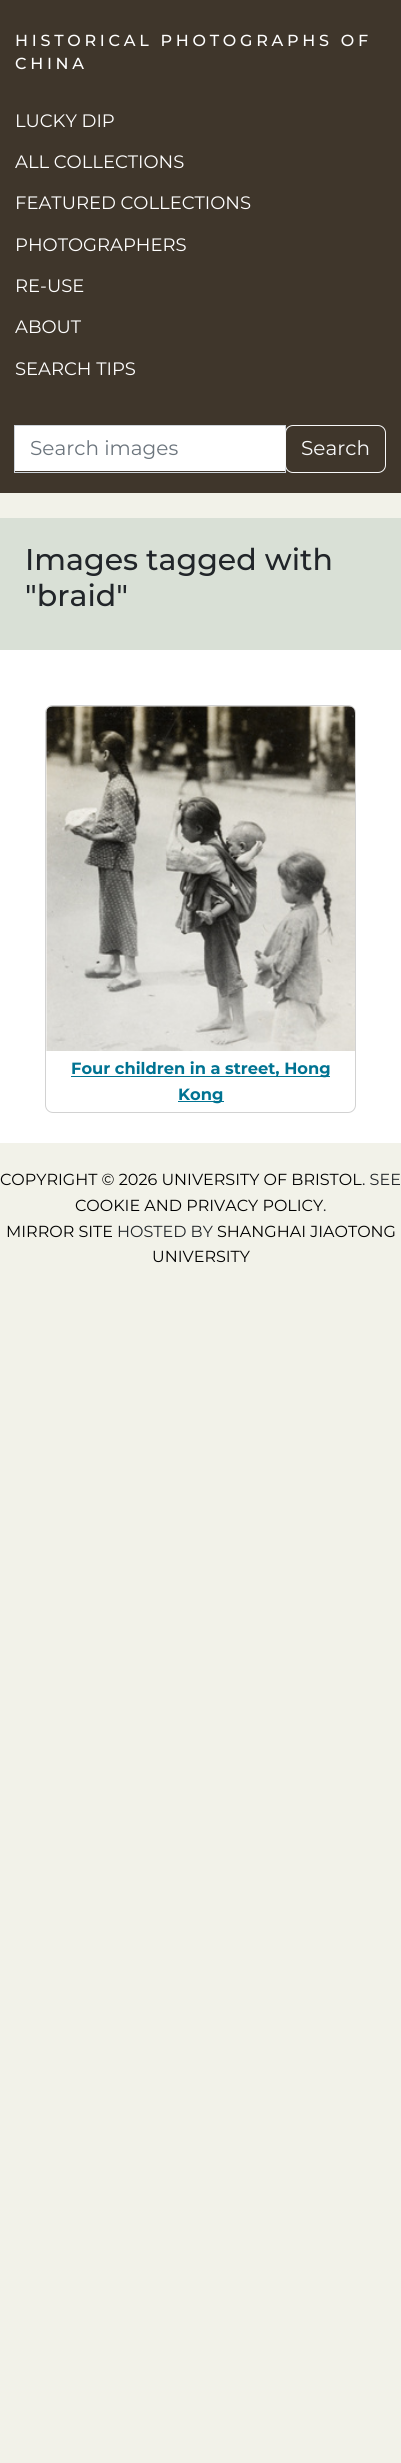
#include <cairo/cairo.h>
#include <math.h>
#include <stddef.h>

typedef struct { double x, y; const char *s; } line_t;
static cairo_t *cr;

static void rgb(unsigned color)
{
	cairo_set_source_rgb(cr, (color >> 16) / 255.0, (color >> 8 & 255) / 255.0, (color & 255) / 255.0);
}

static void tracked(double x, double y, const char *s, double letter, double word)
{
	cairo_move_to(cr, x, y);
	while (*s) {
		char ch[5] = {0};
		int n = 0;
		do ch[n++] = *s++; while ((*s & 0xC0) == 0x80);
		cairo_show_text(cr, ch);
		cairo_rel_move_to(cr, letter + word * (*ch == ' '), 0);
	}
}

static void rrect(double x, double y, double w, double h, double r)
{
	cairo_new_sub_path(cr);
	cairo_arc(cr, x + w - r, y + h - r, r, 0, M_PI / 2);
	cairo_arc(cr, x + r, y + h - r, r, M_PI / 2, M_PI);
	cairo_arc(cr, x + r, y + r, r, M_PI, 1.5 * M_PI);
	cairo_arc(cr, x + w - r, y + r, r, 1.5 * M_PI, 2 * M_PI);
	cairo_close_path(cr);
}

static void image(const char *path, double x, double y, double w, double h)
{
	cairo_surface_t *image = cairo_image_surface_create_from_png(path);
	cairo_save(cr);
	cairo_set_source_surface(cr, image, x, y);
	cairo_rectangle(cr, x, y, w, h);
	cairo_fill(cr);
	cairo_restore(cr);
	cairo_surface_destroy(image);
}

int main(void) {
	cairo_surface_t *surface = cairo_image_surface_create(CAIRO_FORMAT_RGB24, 401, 2463);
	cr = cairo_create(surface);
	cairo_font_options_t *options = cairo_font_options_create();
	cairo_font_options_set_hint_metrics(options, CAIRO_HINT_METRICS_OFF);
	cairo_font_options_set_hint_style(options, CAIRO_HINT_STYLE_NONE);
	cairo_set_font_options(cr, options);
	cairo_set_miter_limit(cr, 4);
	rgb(0xf2f2e9);
	cairo_paint(cr);
	rgb(0x3f362b);
	cairo_rectangle(cr, 0, 0, 401, 493);
	cairo_fill(cr);
	rgb(0xffffff);
	cairo_rectangle(cr, 15, 426, 270, 45);
	cairo_fill(cr);
	cairo_rectangle(cr, 14.5, 425.5, 271, 47);
	rgb(0xced4da);
	cairo_set_line_width(cr, 1);
	cairo_stroke(cr);
	rrect(285.5, 425.5, 100, 47, 7.5);
	rgb(0xf8f9fa);
	cairo_stroke(cr);
	rgb(0xffffff);
	cairo_rectangle(cr, 0, 650, 401, 493);
	cairo_fill(cr);
	rgb(0xd9e0d6);
	cairo_rectangle(cr, 0, 518, 401, 132);
	cairo_fill(cr);
	rrect(45.5, 705.5, 310, 407, 7.5);
	rgb(0xd2d2d2);
	cairo_stroke(cr);
	image("img/1.png", 46, 706, 309, 345);
	rgb(0x007392);
	cairo_rectangle(cr, 71, 1076, 259, 1);
	cairo_fill(cr);
	cairo_rectangle(cr, 178, 1101, 46, 1);
	cairo_fill(cr);
	cairo_select_font_face(cr, "Montserrat Medium", CAIRO_FONT_SLANT_NORMAL, CAIRO_FONT_WEIGHT_NORMAL);
	cairo_set_font_size(cr, 16);
	rgb(0xffffff);
	tracked(15, 46, "HISTORICAL PHOTOGRAPHS OF", 3.75, 0);
	tracked(15, 69, "CHINA", 3.75, 0);
	cairo_select_font_face(cr, "Montserrat", CAIRO_FONT_SLANT_NORMAL, CAIRO_FONT_WEIGHT_NORMAL);
	cairo_set_font_size(cr, 18);
	{
		static const line_t items[] = {
			{15, 127, "LUCKY DIP"},
			{15, 168, "ALL COLLECTIONS"},
			{15, 209, "FEATURED COLLECTIONS"},
			{15, 251, "PHOTOGRAPHERS"},
			{15, 292, "RE-USE"},
			{15, 333, "ABOUT"},
			{15, 375, "SEARCH TIPS"},
		};
		for (size_t i = 0; i < sizeof items / sizeof *items; i++) {
			cairo_move_to(cr, items[i].x, items[i].y);
			cairo_show_text(cr, items[i].s);
		}
	}
	cairo_set_font_size(cr, 20);
	rgb(0x6c757d);
	cairo_move_to(cr, 30, 455);
	cairo_show_text(cr, "Search images");
	rgb(0xf8f9fa);
	cairo_move_to(cr, 301, 455);
	cairo_show_text(cr, "Search");
	cairo_select_font_face(cr, "Montserrat Medium", CAIRO_FONT_SLANT_NORMAL, CAIRO_FONT_WEIGHT_NORMAL);
	cairo_set_font_size(cr, 30);
	rgb(0x212529);
	cairo_move_to(cr, 25, 570);
	cairo_show_text(cr, "Images tagged with");
	cairo_move_to(cr, 25, 606);
	cairo_show_text(cr, "\"braid\"");
	cairo_select_font_face(cr, "Montserrat", CAIRO_FONT_SLANT_NORMAL, CAIRO_FONT_WEIGHT_BOLD);
	cairo_set_font_size(cr, 16.25);
	rgb(0x007392);
	cairo_move_to(cr, 71, 1074);
	cairo_show_text(cr, "Four children in a street, Hong");
	cairo_move_to(cr, 178, 1100);
	cairo_show_text(cr, "Kong");
	cairo_select_font_face(cr, "Montserrat", CAIRO_FONT_SLANT_NORMAL, CAIRO_FONT_WEIGHT_NORMAL);
	cairo_set_font_size(cr, 16);
	rgb(0x000000);
	cairo_move_to(cr, 0, 1185);
	cairo_show_text(cr, "COPYRIGHT © 2026 UNIVERSITY OF BRISTOL");
	rgb(0x212529);
	cairo_move_to(cr, 362, 1185);
	cairo_show_text(cr, ". SEE");
	rgb(0x000000);
	cairo_move_to(cr, 75, 1211);
	cairo_show_text(cr, "COOKIE AND PRIVACY POLICY");
	rgb(0x212529);
	cairo_move_to(cr, 323, 1211);
	cairo_show_text(cr, ".");
	rgb(0x000000);
	cairo_move_to(cr, 6, 1237);
	cairo_show_text(cr, "MIRROR SITE");
	rgb(0x212529);
	cairo_move_to(cr, 117, 1237);
	cairo_show_text(cr, "HOSTED BY");
	rgb(0x000000);
	cairo_move_to(cr, 217, 1237);
	cairo_show_text(cr, "SHANGHAI JIAOTONG");
	cairo_move_to(cr, 152, 1262);
	cairo_show_text(cr, "UNIVERSITY");
	cairo_surface_write_to_png(surface, "page.png");
	cairo_font_options_destroy(options);
	cairo_destroy(cr);
	cairo_surface_destroy(surface);
	return 0;
}
